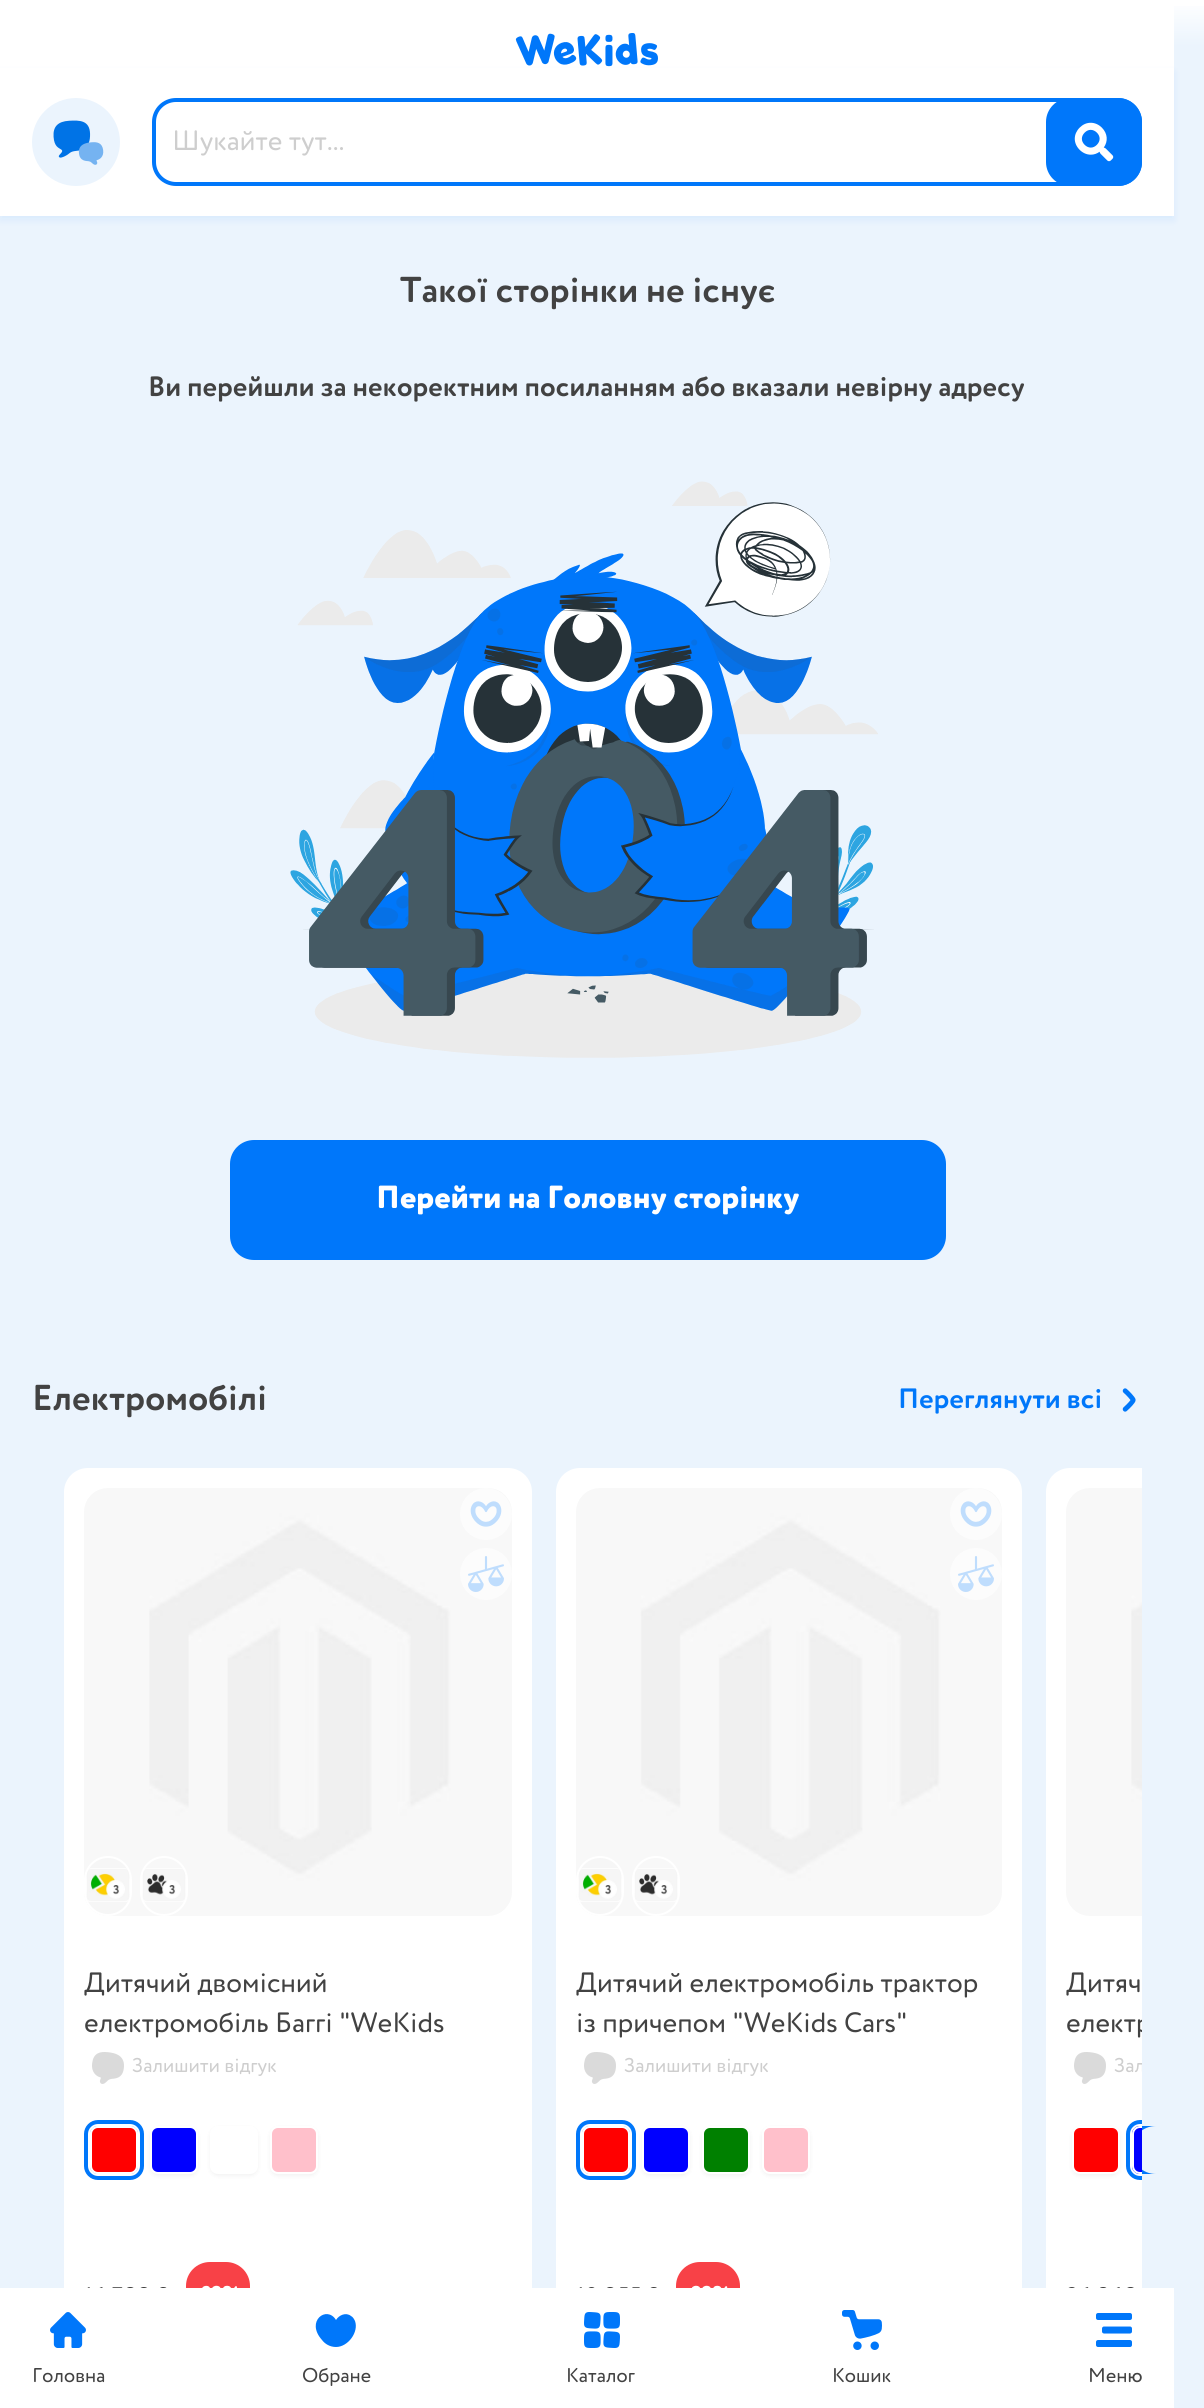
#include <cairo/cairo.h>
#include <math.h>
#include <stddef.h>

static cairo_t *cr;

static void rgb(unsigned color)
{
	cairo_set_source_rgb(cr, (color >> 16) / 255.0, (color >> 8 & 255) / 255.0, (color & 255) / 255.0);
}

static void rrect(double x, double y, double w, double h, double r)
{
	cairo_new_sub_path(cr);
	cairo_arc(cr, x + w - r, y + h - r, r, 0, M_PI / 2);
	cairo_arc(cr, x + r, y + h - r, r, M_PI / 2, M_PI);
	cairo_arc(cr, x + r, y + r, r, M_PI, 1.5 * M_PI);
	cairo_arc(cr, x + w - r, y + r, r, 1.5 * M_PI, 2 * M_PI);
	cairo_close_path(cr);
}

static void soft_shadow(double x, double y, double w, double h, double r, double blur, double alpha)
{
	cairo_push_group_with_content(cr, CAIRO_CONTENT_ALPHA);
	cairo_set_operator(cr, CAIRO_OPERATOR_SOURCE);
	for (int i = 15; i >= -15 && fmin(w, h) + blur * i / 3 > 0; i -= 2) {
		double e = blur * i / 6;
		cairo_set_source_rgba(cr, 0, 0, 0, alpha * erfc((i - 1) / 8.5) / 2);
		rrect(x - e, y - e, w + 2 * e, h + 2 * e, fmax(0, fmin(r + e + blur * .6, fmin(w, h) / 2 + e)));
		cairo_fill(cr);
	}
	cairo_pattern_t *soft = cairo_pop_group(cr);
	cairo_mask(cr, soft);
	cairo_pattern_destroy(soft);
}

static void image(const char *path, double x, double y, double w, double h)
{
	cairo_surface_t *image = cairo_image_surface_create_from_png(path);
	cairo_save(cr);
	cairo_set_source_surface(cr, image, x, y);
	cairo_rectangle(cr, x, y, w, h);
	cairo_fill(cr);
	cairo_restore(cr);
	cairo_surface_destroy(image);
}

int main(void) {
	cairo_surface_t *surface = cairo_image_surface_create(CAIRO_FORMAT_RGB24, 1204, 2408);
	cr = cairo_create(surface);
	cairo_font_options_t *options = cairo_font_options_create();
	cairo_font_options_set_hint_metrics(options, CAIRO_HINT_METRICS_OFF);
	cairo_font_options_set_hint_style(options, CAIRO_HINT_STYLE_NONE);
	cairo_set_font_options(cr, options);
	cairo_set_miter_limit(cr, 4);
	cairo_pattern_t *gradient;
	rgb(0xffffff);
	cairo_paint(cr);
	gradient = cairo_pattern_create_linear(587, 0, 587, 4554);
	cairo_pattern_add_color_stop_rgba(gradient, 0, 1, 1, 1, 1);
	cairo_pattern_add_color_stop_rgba(gradient, 0.01, 0.922, 0.957, 0.992, 1);
	cairo_pattern_add_color_stop_rgba(gradient, 0.94, 0.922, 0.957, 0.992, 1);
	cairo_pattern_add_color_stop_rgba(gradient, 1, 1, 1, 1, 1);
	cairo_set_source(cr, gradient);
	cairo_pattern_destroy(gradient);
	cairo_rectangle(cr, 0, 6, 1204, 2402);
	cairo_fill(cr);
	rgb(0xffffff);
	cairo_rectangle(cr, 0, 6, 1174, 210);
	cairo_fill(cr);
	image("img/1.png", 515, 33, 143, 34);
	cairo_save(cr);
	cairo_set_fill_rule(cr, CAIRO_FILL_RULE_EVEN_ODD);
	cairo_new_path(cr);
	cairo_move_to(cr, 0, 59);
	cairo_line_to(cr, 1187, 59);
	cairo_line_to(cr, 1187, 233);
	cairo_line_to(cr, 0, 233);
	cairo_close_path(cr);
	cairo_move_to(cr, 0, 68);
	cairo_line_to(cr, 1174, 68);
	cairo_line_to(cr, 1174, 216);
	cairo_line_to(cr, 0, 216);
	cairo_close_path(cr);
	cairo_clip(cr);
	rgb(0x0077fa);
	soft_shadow(0, 72, 1174, 148, 0, 4, 0.08);
	cairo_restore(cr);
	image("img/2.png", 32, 98, 88, 88);
	rrect(154, 100, 986, 84, 22);
	rgb(0x0077fa);
	cairo_set_line_width(cr, 4);
	cairo_stroke(cr);
	image("img/3.png", 175, 130, 168, 26);
	rrect(1046, 98, 96, 88, 24);
	cairo_fill(cr);
	image("img/4.png", 1074, 122, 40, 40);
	rgb(0xffffff);
	rrect(64, 1468, 468, 934, 24);
	cairo_fill(cr);
	rgb(0xf84147);
	rrect(186, 2262, 64, 64, 24);
	cairo_fill(cr);
	rgb(0xffffff);
	rrect(556, 1468, 466, 934, 24);
	cairo_fill(cr);
	rgb(0xf84147);
	rrect(676, 2262, 64, 64, 24);
	cairo_fill(cr);
	rgb(0x0077fa);
	cairo_new_path(cr);
	cairo_move_to(cr, 1156, 2126);
	cairo_line_to(cr, 1142, 2126);
	cairo_line_to(cr, 1142, 2174);
	cairo_line_to(cr, 1156, 2174);
	cairo_curve_to(cr, 1142.5, 2174, 1132, 2163.5, 1132, 2150);
	cairo_curve_to(cr, 1132, 2136.5, 1142.5, 2126, 1156, 2126);
	cairo_close_path(cr);
	cairo_fill(cr);
	cairo_save(cr);
	cairo_rectangle(cr, 32, 1460, 1110, 934);
	cairo_clip(cr);
	rgb(0xffffff);
	rrect(1046, 1468, 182, 934, 24);
	cairo_fill(cr);
	cairo_restore(cr);
	rgb(0xffffff);
	cairo_rectangle(cr, 0, 2288, 1174, 120);
	cairo_fill(cr);
	image("img/5.png", 50, 2312, 36, 36);
	image("img/6.png", 34, 2368, 71, 15);
	rgb(0x0077fa);
	cairo_new_path(cr);
	cairo_move_to(cr, 351, 2316);
	cairo_curve_to(cr, 346, 2312, 339, 2315, 336, 2320);
	cairo_curve_to(cr, 327, 2305, 305, 2321, 322, 2340);
	cairo_curve_to(cr, 325, 2344, 330, 2347, 336, 2347);
	cairo_curve_to(cr, 348, 2347, 359, 2332, 355, 2321);
	cairo_curve_to(cr, 354, 2319, 353, 2317, 351, 2316);
	cairo_close_path(cr);
	cairo_fill(cr);
	image("img/7.png", 303, 2367, 68, 19);
	image("img/8.png", 584, 2312, 36, 36);
	image("img/9.png", 568, 2367, 67, 16);
	image("img/10.png", 842, 2310, 40, 40);
	image("img/11.png", 834, 2367, 57, 16);
	image("img/12.png", 1096, 2313, 36, 34);
	image("img/13.png", 1090, 2367, 52, 16);
	image("img/14.png", 400, 276, 375, 34);
	image("img/15.png", 150, 376, 874, 26);
	image("img/16.png", 290, 481, 588, 577);
	rrect(231, 1141, 714, 118, 23);
	cairo_fill_preserve(cr);
	cairo_set_line_width(cr, 2);
	cairo_stroke(cr);
	image("img/17.png", 378, 1185, 421, 30);
	image("img/18.png", 35, 1384, 230, 34);
	image("img/19.png", 900, 1388, 201, 26);
	image("img/20.png", 1122, 1388, 14, 24);
	image("img/21.png", 84, 1488, 428, 428);
	cairo_save(cr);
	rrect(84, 1488, 428, 428, 24);
	cairo_clip(cr);
	rgb(0xfcfcfc);
	cairo_arc(cr, 486, 1514, 26, 0, 2 * M_PI);
	cairo_fill(cr);
	cairo_restore(cr);
	image("img/22.png", 470, 1501, 32, 26);
	rgb(0xfcfcfc);
	cairo_arc(cr, 486, 1574, 26, 0, 2 * M_PI);
	cairo_fill(cr);
	image("img/23.png", 468, 1556, 36, 36);
	rgb(0xf6f6f6);
	rrect(85, 1857, 46, 58, 23);
	cairo_fill_preserve(cr);
	rgb(0xffffff);
	cairo_stroke(cr);
	image("img/24.png", 86, 1868, 44, 34);
	rrect(141, 1857, 46, 58, 23);
	cairo_stroke(cr);
	image("img/25.png", 142, 1868, 44, 34);
	image("img/26.png", 84, 1972, 242, 24);
	image("img/27.png", 85, 2012, 359, 26);
	image("img/28.png", 92, 2052, 32, 32);
	image("img/29.png", 132, 2057, 144, 19);
	rgb(0x000000);
	soft_shadow(90, 2128, 48, 48, 8, 2, 0.05);
	rrect(87, 2123, 54, 54, 11);
	rgb(0x0077fa);
	cairo_set_line_width(cr, 6);
	cairo_stroke(cr);
	rrect(89, 2125, 50, 50, 9);
	rgb(0xffffff);
	cairo_set_line_width(cr, 2);
	cairo_stroke(cr);
	rgb(0xff0000);
	rrect(91, 2127, 46, 46, 7);
	cairo_fill_preserve(cr);
	rgb(0xffffff);
	cairo_stroke(cr);
	rgb(0x000000);
	soft_shadow(150, 2128, 48, 48, 8, 2, 0.05);
	rgb(0x0000ff);
	rrect(151, 2127, 46, 46, 7);
	cairo_fill_preserve(cr);
	rgb(0xffffff);
	cairo_stroke(cr);
	rgb(0x000000);
	soft_shadow(210, 2128, 48, 48, 8, 2, 0.05);
	rgb(0xffffff);
	rrect(210, 2126, 48, 48, 8);
	cairo_fill(cr);
	rgb(0x000000);
	soft_shadow(270, 2128, 48, 48, 8, 2, 0.05);
	rgb(0xffc0cb);
	rrect(271, 2127, 46, 46, 7);
	cairo_fill_preserve(cr);
	rgb(0xffffff);
	cairo_stroke(cr);
	image("img/30.png", 87, 2287, 80, 1);
	image("img/31.png", 202, 2285, 35, 3);
	image("img/32.png", 576, 1488, 426, 428);
	cairo_save(cr);
	rrect(576, 1488, 426, 428, 24);
	cairo_clip(cr);
	rgb(0xfcfcfc);
	cairo_arc(cr, 976, 1514, 26, 0, 2 * M_PI);
	cairo_fill(cr);
	cairo_restore(cr);
	image("img/22.png", 960, 1501, 32, 26);
	rgb(0xfcfcfc);
	cairo_arc(cr, 976, 1574, 26, 0, 2 * M_PI);
	cairo_fill(cr);
	image("img/23.png", 958, 1556, 36, 36);
	rgb(0xf6f6f6);
	rrect(577, 1857, 46, 58, 23);
	cairo_fill_preserve(cr);
	rgb(0xffffff);
	cairo_stroke(cr);
	image("img/33.png", 578, 1868, 44, 34);
	rrect(633, 1857, 46, 58, 23);
	cairo_stroke(cr);
	image("img/25.png", 634, 1868, 44, 34);
	image("img/34.png", 576, 1972, 402, 26);
	image("img/35.png", 578, 2012, 328, 26);
	image("img/28.png", 584, 2052, 32, 32);
	image("img/29.png", 624, 2057, 144, 19);
	rgb(0x000000);
	soft_shadow(582, 2128, 48, 48, 8, 2, 0.05);
	rrect(579, 2123, 54, 54, 11);
	rgb(0x0077fa);
	cairo_set_line_width(cr, 6);
	cairo_stroke(cr);
	rrect(581, 2125, 50, 50, 9);
	rgb(0xffffff);
	cairo_set_line_width(cr, 2);
	cairo_stroke(cr);
	rgb(0xff0000);
	rrect(583, 2127, 46, 46, 7);
	cairo_fill_preserve(cr);
	rgb(0xffffff);
	cairo_stroke(cr);
	rgb(0x000000);
	soft_shadow(642, 2128, 48, 48, 8, 2, 0.05);
	rgb(0x0000ff);
	rrect(643, 2127, 46, 46, 7);
	cairo_fill_preserve(cr);
	rgb(0xffffff);
	cairo_stroke(cr);
	rgb(0x000000);
	soft_shadow(702, 2128, 48, 48, 8, 2, 0.05);
	rgb(0x008000);
	rrect(703, 2127, 46, 46, 7);
	cairo_fill_preserve(cr);
	rgb(0xffffff);
	cairo_stroke(cr);
	rgb(0x000000);
	soft_shadow(762, 2128, 48, 48, 8, 2, 0.05);
	rgb(0xffc0cb);
	rrect(763, 2127, 46, 46, 7);
	cairo_fill_preserve(cr);
	rgb(0xffffff);
	cairo_stroke(cr);
	image("img/36.png", 579, 2287, 78, 1);
	image("img/37.png", 692, 2285, 36, 3);
	image("img/38.png", 1066, 1488, 76, 428);
	image("img/39.png", 1066, 1972, 74, 24);
	image("img/40.png", 1067, 2019, 75, 19);
	image("img/28.png", 1074, 2052, 32, 32);
	image("img/41.png", 1114, 2057, 28, 16);
	rgb(0x000000);
	soft_shadow(1072, 2128, 48, 48, 8, 2, 0.05);
	rgb(0xff0000);
	rrect(1073, 2127, 46, 46, 7);
	cairo_fill_preserve(cr);
	rgb(0xffffff);
	cairo_stroke(cr);
	cairo_save(cr);
	cairo_rectangle(cr, 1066, 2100, 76, 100);
	cairo_clip(cr);
	rgb(0x000000);
	soft_shadow(1132, 2128, 48, 48, 8, 2, 0.05);
	cairo_restore(cr);
	cairo_save(cr);
	cairo_rectangle(cr, 1066, 2100, 76, 100);
	cairo_clip(cr);
	rrect(1129, 2123, 54, 54, 11);
	rgb(0x0077fa);
	cairo_set_line_width(cr, 6);
	cairo_stroke(cr);
	rrect(1131, 2125, 50, 50, 9);
	rgb(0xffffff);
	cairo_set_line_width(cr, 2);
	cairo_stroke(cr);
	cairo_restore(cr);
	rgb(0x0000ff);
	cairo_new_path(cr);
	cairo_move_to(cr, 1140, 2126);
	cairo_line_to(cr, 1142, 2126);
	cairo_line_to(cr, 1142, 2174);
	cairo_line_to(cr, 1140, 2174);
	cairo_curve_to(cr, 1135.5, 2174, 1132, 2170.5, 1132, 2166);
	cairo_line_to(cr, 1132, 2134);
	cairo_curve_to(cr, 1132, 2129.5, 1135.5, 2126, 1140, 2126);
	cairo_close_path(cr);
	cairo_fill(cr);
	cairo_save(cr);
	cairo_rectangle(cr, 1066, 2100, 76, 100);
	cairo_clip(cr);
	rrect(1133, 2127, 46, 46, 7);
	rgb(0xffffff);
	cairo_stroke(cr);
	cairo_restore(cr);
	image("img/42.png", 1068, 2287, 66, 1);
	cairo_surface_write_to_png(surface, "page.png");
	cairo_font_options_destroy(options);
	cairo_destroy(cr);
	cairo_surface_destroy(surface);
	return 0;
}
